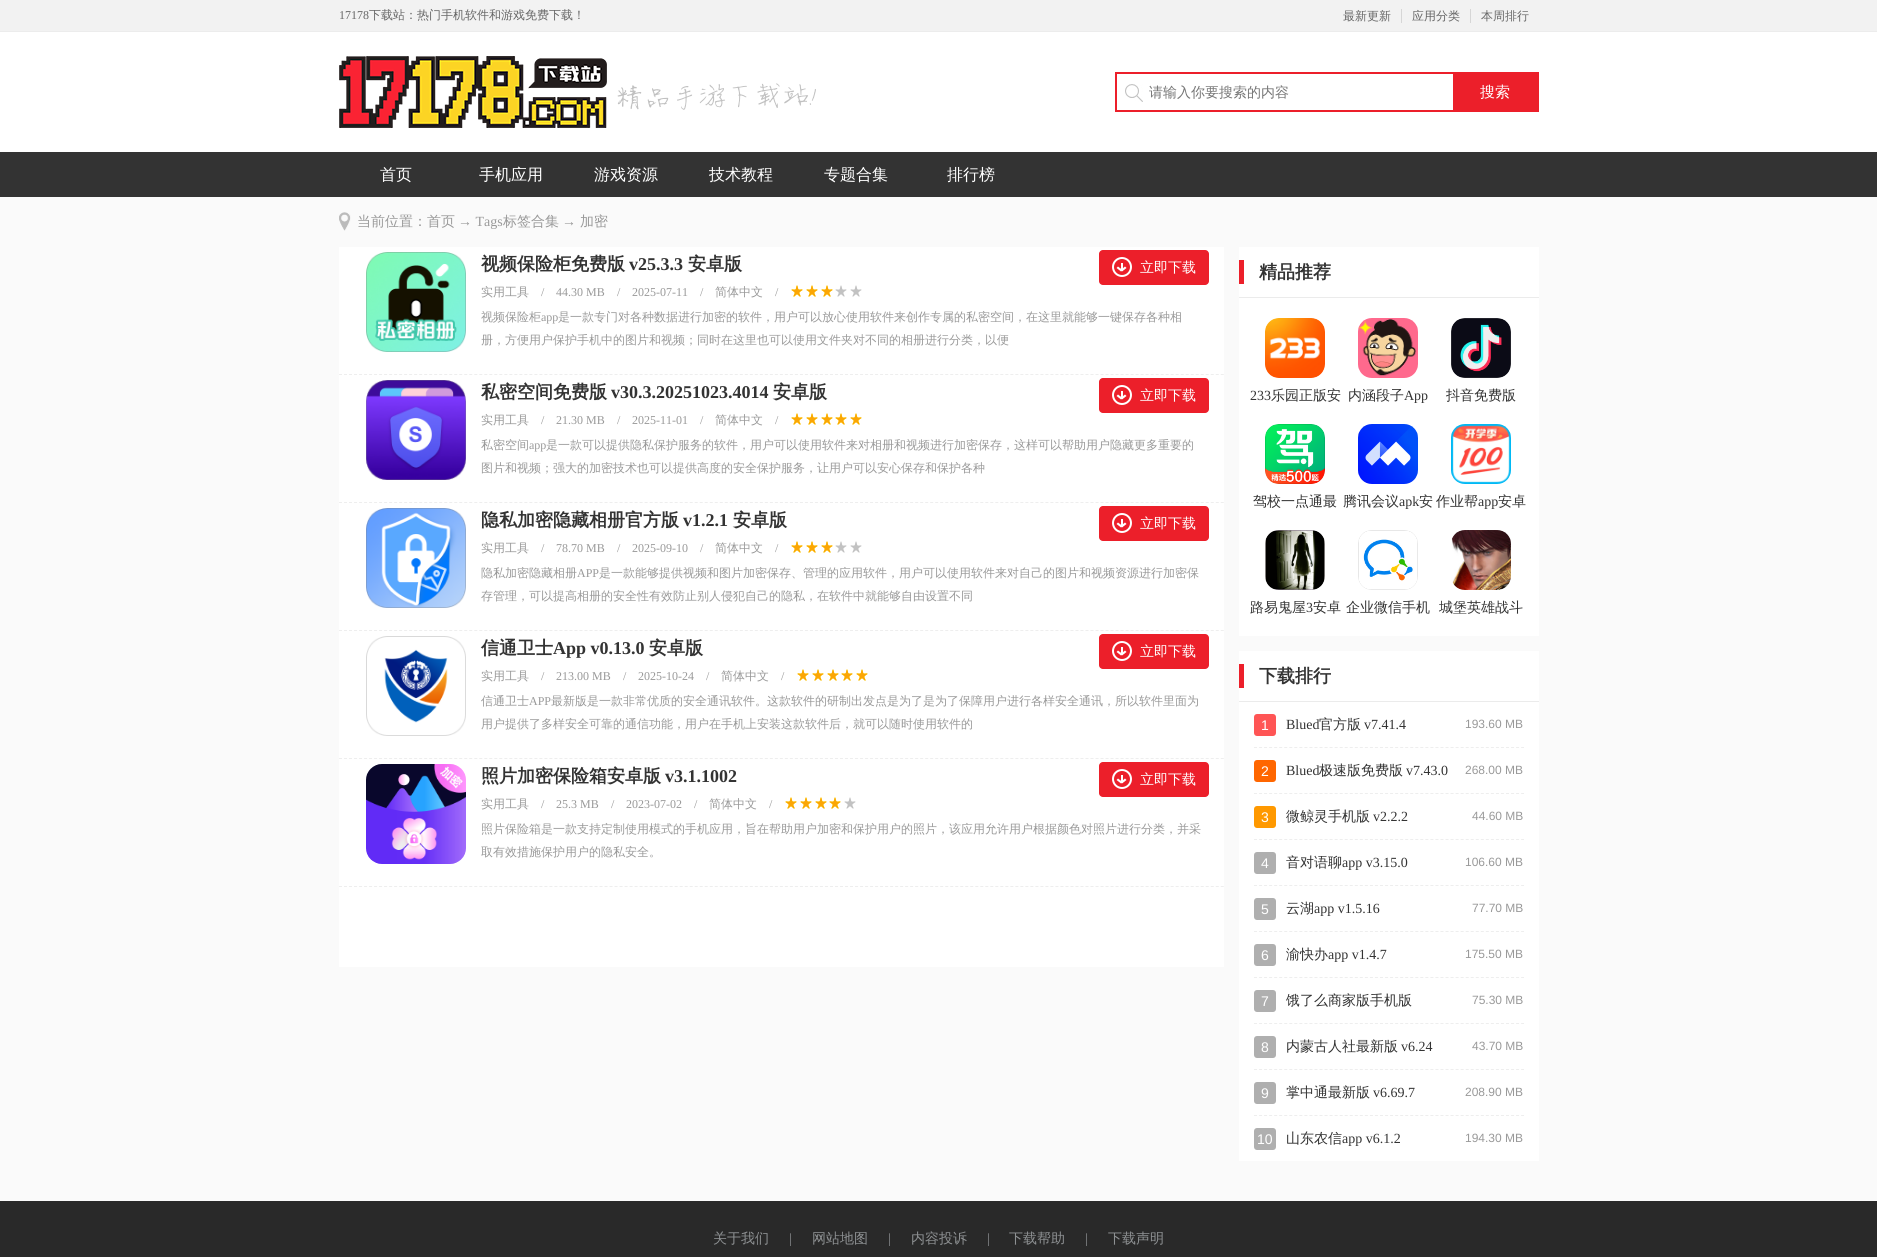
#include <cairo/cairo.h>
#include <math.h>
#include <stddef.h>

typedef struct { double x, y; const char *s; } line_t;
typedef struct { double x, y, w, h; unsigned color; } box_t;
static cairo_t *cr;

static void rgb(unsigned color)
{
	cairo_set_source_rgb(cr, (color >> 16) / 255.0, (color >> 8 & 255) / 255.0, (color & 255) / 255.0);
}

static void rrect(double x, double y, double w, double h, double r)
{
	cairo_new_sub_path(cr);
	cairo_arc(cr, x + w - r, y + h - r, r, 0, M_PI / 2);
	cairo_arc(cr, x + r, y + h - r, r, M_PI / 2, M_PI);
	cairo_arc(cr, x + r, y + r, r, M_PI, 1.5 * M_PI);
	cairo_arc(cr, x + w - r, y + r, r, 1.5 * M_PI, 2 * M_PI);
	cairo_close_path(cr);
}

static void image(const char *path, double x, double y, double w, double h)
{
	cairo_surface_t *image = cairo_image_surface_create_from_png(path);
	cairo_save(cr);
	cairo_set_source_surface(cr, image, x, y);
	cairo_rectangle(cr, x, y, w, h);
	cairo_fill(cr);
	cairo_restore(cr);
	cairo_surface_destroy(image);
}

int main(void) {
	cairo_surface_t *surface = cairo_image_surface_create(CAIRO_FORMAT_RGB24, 1877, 1257);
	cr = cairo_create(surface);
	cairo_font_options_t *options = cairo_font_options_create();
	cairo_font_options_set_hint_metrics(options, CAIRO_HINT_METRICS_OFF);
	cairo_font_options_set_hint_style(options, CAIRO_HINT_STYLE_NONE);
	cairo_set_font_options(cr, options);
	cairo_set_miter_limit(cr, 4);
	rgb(0xfafafa);
	cairo_paint(cr);
	{
		static const box_t items[] = {
			{0, 0, 1877, 31, 0xf2f2f2},
			{0, 31, 1877, 1, 0xececec},
			{1401, 9, 1, 14, 0xd6d6d6},
			{1470, 9, 1, 14, 0xd6d6d6},
			{0, 32, 1877, 120, 0xffffff},
		};
		for (size_t i = 0; i < sizeof items / sizeof *items; i++) {
			rgb(items[i].color);
			cairo_rectangle(cr, items[i].x, items[i].y, items[i].w, items[i].h);
			cairo_fill(cr);
		}
	}
	image("img/1.png", 339, 56, 268, 72);
	image("img/2.png", 617, 83, 199, 27);
	cairo_rectangle(cr, 1116, 73, 422, 38);
	rgb(0xec1f2a);
	cairo_stroke(cr);
	image("img/3.png", 1125, 84, 18, 18);
	cairo_rectangle(cr, 1453, 74, 84, 36);
	cairo_fill(cr);
	rgb(0x333333);
	cairo_rectangle(cr, 0, 152, 1877, 45);
	cairo_fill(cr);
	image("img/4.png", 339, 212, 12, 19);
	rgb(0xffffff);
	cairo_rectangle(cr, 339, 247, 885, 720);
	cairo_fill(cr);
	cairo_new_path(cr);
	cairo_move_to(cr, 339, 374.5);
	cairo_line_to(cr, 1224, 374.5);
	rgb(0xeeeeee);
	cairo_set_line_width(cr, 1);
	cairo_set_dash(cr, (double[]){3, 2.01}, 2, 0);
	cairo_stroke(cr);
	image("img/5.png", 366, 252, 100, 100);
	rgb(0xec1f2a);
	rrect(1099, 250, 110, 35, 4);
	cairo_fill(cr);
	cairo_arc(cr, 1122, 267, 9, 0, 2 * M_PI);
	rgb(0xffffff);
	cairo_set_line_width(cr, 2);
	cairo_set_dash(cr, NULL, 0, 0);
	cairo_stroke(cr);
	cairo_rectangle(cr, 1121, 263, 2, 8);
	cairo_fill(cr);
	cairo_new_path(cr);
	cairo_move_to(cr, 1116.5, 268);
	cairo_line_to(cr, 1118, 266.5);
	cairo_line_to(cr, 1122.5, 270);
	cairo_line_to(cr, 1121, 271.5);
	cairo_close_path(cr);
	cairo_fill(cr);
	cairo_new_path(cr);
	cairo_move_to(cr, 1125, 266.5);
	cairo_line_to(cr, 1126.5, 268);
	cairo_line_to(cr, 1122, 271.5);
	cairo_line_to(cr, 1120.5, 270);
	cairo_close_path(cr);
	cairo_fill(cr);
	image("img/6.png", 791, 285, 71, 12);
	cairo_new_path(cr);
	cairo_move_to(cr, 339, 502.5);
	cairo_line_to(cr, 1224, 502.5);
	rgb(0xeeeeee);
	cairo_set_line_width(cr, 1);
	cairo_set_dash(cr, (double[]){3, 2.01}, 2, 0);
	cairo_stroke(cr);
	image("img/7.png", 366, 380, 100, 100);
	rgb(0xec1f2a);
	rrect(1099, 378, 110, 35, 4);
	cairo_fill(cr);
	cairo_arc(cr, 1122, 395, 9, 0, 2 * M_PI);
	rgb(0xffffff);
	cairo_set_line_width(cr, 2);
	cairo_set_dash(cr, NULL, 0, 0);
	cairo_stroke(cr);
	cairo_rectangle(cr, 1121, 391, 2, 8);
	cairo_fill(cr);
	cairo_new_path(cr);
	cairo_move_to(cr, 1116.5, 396);
	cairo_line_to(cr, 1118, 394.5);
	cairo_line_to(cr, 1122.5, 398);
	cairo_line_to(cr, 1121, 399.5);
	cairo_close_path(cr);
	cairo_fill(cr);
	cairo_new_path(cr);
	cairo_move_to(cr, 1125, 394.5);
	cairo_line_to(cr, 1126.5, 396);
	cairo_line_to(cr, 1122, 399.5);
	cairo_line_to(cr, 1120.5, 398);
	cairo_close_path(cr);
	cairo_fill(cr);
	image("img/8.png", 791, 413, 71, 12);
	cairo_new_path(cr);
	cairo_move_to(cr, 339, 630.5);
	cairo_line_to(cr, 1224, 630.5);
	rgb(0xeeeeee);
	cairo_set_line_width(cr, 1);
	cairo_set_dash(cr, (double[]){3, 2.01}, 2, 0);
	cairo_stroke(cr);
	image("img/9.png", 366, 508, 100, 100);
	rgb(0xec1f2a);
	rrect(1099, 506, 110, 35, 4);
	cairo_fill(cr);
	cairo_arc(cr, 1122, 523, 9, 0, 2 * M_PI);
	rgb(0xffffff);
	cairo_set_line_width(cr, 2);
	cairo_set_dash(cr, NULL, 0, 0);
	cairo_stroke(cr);
	cairo_rectangle(cr, 1121, 519, 2, 8);
	cairo_fill(cr);
	cairo_new_path(cr);
	cairo_move_to(cr, 1116.5, 524);
	cairo_line_to(cr, 1118, 522.5);
	cairo_line_to(cr, 1122.5, 526);
	cairo_line_to(cr, 1121, 527.5);
	cairo_close_path(cr);
	cairo_fill(cr);
	cairo_new_path(cr);
	cairo_move_to(cr, 1125, 522.5);
	cairo_line_to(cr, 1126.5, 524);
	cairo_line_to(cr, 1122, 527.5);
	cairo_line_to(cr, 1120.5, 526);
	cairo_close_path(cr);
	cairo_fill(cr);
	image("img/6.png", 791, 541, 71, 12);
	cairo_new_path(cr);
	cairo_move_to(cr, 339, 758.5);
	cairo_line_to(cr, 1224, 758.5);
	rgb(0xeeeeee);
	cairo_set_line_width(cr, 1);
	cairo_set_dash(cr, (double[]){3, 2.01}, 2, 0);
	cairo_stroke(cr);
	image("img/10.png", 366, 636, 100, 100);
	rgb(0xec1f2a);
	rrect(1099, 634, 110, 35, 4);
	cairo_fill(cr);
	cairo_arc(cr, 1122, 651, 9, 0, 2 * M_PI);
	rgb(0xffffff);
	cairo_set_line_width(cr, 2);
	cairo_set_dash(cr, NULL, 0, 0);
	cairo_stroke(cr);
	cairo_rectangle(cr, 1121, 647, 2, 8);
	cairo_fill(cr);
	cairo_new_path(cr);
	cairo_move_to(cr, 1116.5, 652);
	cairo_line_to(cr, 1118, 650.5);
	cairo_line_to(cr, 1122.5, 654);
	cairo_line_to(cr, 1121, 655.5);
	cairo_close_path(cr);
	cairo_fill(cr);
	cairo_new_path(cr);
	cairo_move_to(cr, 1125, 650.5);
	cairo_line_to(cr, 1126.5, 652);
	cairo_line_to(cr, 1122, 655.5);
	cairo_line_to(cr, 1120.5, 654);
	cairo_close_path(cr);
	cairo_fill(cr);
	image("img/8.png", 797, 669, 71, 12);
	cairo_new_path(cr);
	cairo_move_to(cr, 339, 886.5);
	cairo_line_to(cr, 1224, 886.5);
	rgb(0xeeeeee);
	cairo_set_line_width(cr, 1);
	cairo_set_dash(cr, (double[]){3, 2.01}, 2, 0);
	cairo_stroke(cr);
	image("img/11.png", 366, 764, 100, 100);
	rgb(0xec1f2a);
	rrect(1099, 762, 110, 35, 4);
	cairo_fill(cr);
	cairo_arc(cr, 1122, 779, 9, 0, 2 * M_PI);
	rgb(0xffffff);
	cairo_set_line_width(cr, 2);
	cairo_set_dash(cr, NULL, 0, 0);
	cairo_stroke(cr);
	cairo_rectangle(cr, 1121, 775, 2, 8);
	cairo_fill(cr);
	cairo_new_path(cr);
	cairo_move_to(cr, 1116.5, 780);
	cairo_line_to(cr, 1118, 778.5);
	cairo_line_to(cr, 1122.5, 782);
	cairo_line_to(cr, 1121, 783.5);
	cairo_close_path(cr);
	cairo_fill(cr);
	cairo_new_path(cr);
	cairo_move_to(cr, 1125, 778.5);
	cairo_line_to(cr, 1126.5, 780);
	cairo_line_to(cr, 1122, 783.5);
	cairo_line_to(cr, 1120.5, 782);
	cairo_close_path(cr);
	cairo_fill(cr);
	image("img/12.png", 785, 797, 71, 12);
	{
		static const box_t items[] = {
			{1239, 247, 300, 914, 0xffffff},
			{1239, 297, 300, 1, 0xebebeb},
			{1239, 260, 5, 24, 0xec1f2a},
		};
		for (size_t i = 0; i < sizeof items / sizeof *items; i++) {
			rgb(items[i].color);
			cairo_rectangle(cr, items[i].x, items[i].y, items[i].w, items[i].h);
			cairo_fill(cr);
		}
	}
	image("img/13.png", 1265, 318, 60, 60);
	image("img/14.png", 1358, 318, 60, 60);
	image("img/15.png", 1451, 318, 60, 60);
	image("img/16.png", 1265, 424, 60, 60);
	image("img/17.png", 1358, 424, 60, 60);
	image("img/18.png", 1451, 424, 60, 60);
	image("img/19.png", 1265, 530, 60, 60);
	image("img/20.png", 1358, 530, 60, 60);
	image("img/21.png", 1451, 530, 60, 60);
	{
		static const box_t items[] = {
			{1239, 636, 300, 15, 0xfafafa},
			{1239, 701, 300, 1, 0xebebeb},
			{1239, 664, 5, 24, 0xec1f2a},
		};
		for (size_t i = 0; i < sizeof items / sizeof *items; i++) {
			rgb(items[i].color);
			cairo_rectangle(cr, items[i].x, items[i].y, items[i].w, items[i].h);
			cairo_fill(cr);
		}
	}
	cairo_new_path(cr);
	cairo_move_to(cr, 1254, 747.5);
	cairo_line_to(cr, 1524, 747.5);
	rgb(0xeeeeee);
	cairo_set_line_width(cr, 1);
	cairo_set_dash(cr, (double[]){3, 2.04}, 2, 0);
	cairo_stroke(cr);
	rgb(0xff5555);
	rrect(1254, 714, 22, 22, 3);
	cairo_fill(cr);
	cairo_new_path(cr);
	cairo_move_to(cr, 1254, 793.5);
	cairo_line_to(cr, 1524, 793.5);
	rgb(0xeeeeee);
	cairo_stroke(cr);
	rgb(0xff6600);
	rrect(1254, 760, 22, 22, 3);
	cairo_fill(cr);
	cairo_new_path(cr);
	cairo_move_to(cr, 1254, 839.5);
	cairo_line_to(cr, 1524, 839.5);
	rgb(0xeeeeee);
	cairo_stroke(cr);
	rgb(0xff9900);
	rrect(1254, 806, 22, 22, 3);
	cairo_fill(cr);
	cairo_new_path(cr);
	cairo_move_to(cr, 1254, 885.5);
	cairo_line_to(cr, 1524, 885.5);
	rgb(0xeeeeee);
	cairo_stroke(cr);
	rgb(0xafafaf);
	rrect(1254, 852, 22, 22, 3);
	cairo_fill(cr);
	cairo_new_path(cr);
	cairo_move_to(cr, 1254, 931.5);
	cairo_line_to(cr, 1524, 931.5);
	rgb(0xeeeeee);
	cairo_stroke(cr);
	rgb(0xafafaf);
	rrect(1254, 898, 22, 22, 3);
	cairo_fill(cr);
	cairo_new_path(cr);
	cairo_move_to(cr, 1254, 977.5);
	cairo_line_to(cr, 1524, 977.5);
	rgb(0xeeeeee);
	cairo_stroke(cr);
	rgb(0xafafaf);
	rrect(1254, 944, 22, 22, 3);
	cairo_fill(cr);
	cairo_new_path(cr);
	cairo_move_to(cr, 1254, 1023.5);
	cairo_line_to(cr, 1524, 1023.5);
	rgb(0xeeeeee);
	cairo_stroke(cr);
	rgb(0xafafaf);
	rrect(1254, 990, 22, 22, 3);
	cairo_fill(cr);
	cairo_new_path(cr);
	cairo_move_to(cr, 1254, 1069.5);
	cairo_line_to(cr, 1524, 1069.5);
	rgb(0xeeeeee);
	cairo_stroke(cr);
	rgb(0xafafaf);
	rrect(1254, 1036, 22, 22, 3);
	cairo_fill(cr);
	cairo_new_path(cr);
	cairo_move_to(cr, 1254, 1115.5);
	cairo_line_to(cr, 1524, 1115.5);
	rgb(0xeeeeee);
	cairo_stroke(cr);
	rgb(0xafafaf);
	rrect(1254, 1082, 22, 22, 3);
	cairo_fill(cr);
	rrect(1254, 1128, 22, 22, 3);
	cairo_fill(cr);
	rgb(0x292929);
	cairo_rectangle(cr, 0, 1201, 1877, 56);
	cairo_fill(cr);
	cairo_select_font_face(cr, "Liberation Serif", CAIRO_FONT_SLANT_NORMAL, CAIRO_FONT_WEIGHT_NORMAL);
	cairo_set_font_size(cr, 12);
	rgb(0x666666);
	cairo_move_to(cr, 339, 19);
	cairo_show_text(cr, "17178");
	cairo_select_font_face(cr, "WenQuanYi Zen Hei Medium", CAIRO_FONT_SLANT_NORMAL, CAIRO_FONT_WEIGHT_NORMAL);
	{
		static const line_t items[] = {
			{369, 19, "下载站：热门手机软件和游戏免费下载！"},
			{1343, 20, "最新更新"},
			{1412, 20, "应用分类"},
			{1481, 20, "本周排行"},
		};
		for (size_t i = 0; i < sizeof items / sizeof *items; i++) {
			cairo_move_to(cr, items[i].x, items[i].y);
			cairo_show_text(cr, items[i].s);
		}
	}
	cairo_set_font_size(cr, 14);
	rgb(0x757575);
	cairo_move_to(cr, 1149, 97);
	cairo_show_text(cr, "请输入你要搜索的内容");
	cairo_set_font_size(cr, 15);
	rgb(0xffffff);
	cairo_move_to(cr, 1480, 97);
	cairo_show_text(cr, "搜索");
	cairo_set_font_size(cr, 16);
	{
		static const line_t items[] = {
			{380, 180, "首页"},
			{479, 180, "手机应用"},
			{594, 180, "游戏资源"},
			{709, 180, "技术教程"},
			{824, 180, "专题合集"},
			{947, 180, "排行榜"},
		};
		for (size_t i = 0; i < sizeof items / sizeof *items; i++) {
			cairo_move_to(cr, items[i].x, items[i].y);
			cairo_show_text(cr, items[i].s);
		}
	}
	cairo_set_font_size(cr, 14);
	rgb(0x999999);
	cairo_move_to(cr, 357, 226);
	cairo_show_text(cr, "当前位置：首页");
	cairo_select_font_face(cr, "Liberation Serif", CAIRO_FONT_SLANT_NORMAL, CAIRO_FONT_WEIGHT_NORMAL);
	cairo_move_to(cr, 458, 226);
	cairo_show_text(cr, "→ Tags");
	cairo_select_font_face(cr, "WenQuanYi Zen Hei Medium", CAIRO_FONT_SLANT_NORMAL, CAIRO_FONT_WEIGHT_NORMAL);
	cairo_move_to(cr, 503, 226);
	cairo_show_text(cr, "标签合集");
	cairo_select_font_face(cr, "Liberation Serif", CAIRO_FONT_SLANT_NORMAL, CAIRO_FONT_WEIGHT_NORMAL);
	cairo_move_to(cr, 562, 226);
	cairo_show_text(cr, "→");
	cairo_select_font_face(cr, "WenQuanYi Zen Hei Medium", CAIRO_FONT_SLANT_NORMAL, CAIRO_FONT_WEIGHT_NORMAL);
	cairo_move_to(cr, 580, 226);
	cairo_show_text(cr, "加密");
	cairo_select_font_face(cr, "WenQuanYi Zen Hei", CAIRO_FONT_SLANT_NORMAL, CAIRO_FONT_WEIGHT_BOLD);
	cairo_set_font_size(cr, 18);
	rgb(0x333333);
	cairo_move_to(cr, 481, 270);
	cairo_show_text(cr, "视频保险柜免费版");
	cairo_select_font_face(cr, "Liberation Serif", CAIRO_FONT_SLANT_NORMAL, CAIRO_FONT_WEIGHT_BOLD);
	cairo_move_to(cr, 629, 270);
	cairo_show_text(cr, "v25.3.3");
	cairo_select_font_face(cr, "WenQuanYi Zen Hei", CAIRO_FONT_SLANT_NORMAL, CAIRO_FONT_WEIGHT_BOLD);
	cairo_move_to(cr, 688, 270);
	cairo_show_text(cr, "安卓版");
	cairo_select_font_face(cr, "WenQuanYi Zen Hei Medium", CAIRO_FONT_SLANT_NORMAL, CAIRO_FONT_WEIGHT_NORMAL);
	cairo_set_font_size(cr, 14);
	rgb(0xffffff);
	cairo_move_to(cr, 1140, 272);
	cairo_show_text(cr, "立即下载");
	cairo_set_font_size(cr, 12);
	rgb(0x999999);
	cairo_move_to(cr, 481, 296);
	cairo_show_text(cr, "实用工具");
	cairo_select_font_face(cr, "Liberation Serif", CAIRO_FONT_SLANT_NORMAL, CAIRO_FONT_WEIGHT_NORMAL);
	{
		static const line_t items[] = {
			{541, 296, "/"},
			{556, 296, "44.30 MB"},
			{617, 296, "/"},
			{632, 296, "2025-07-11"},
			{700, 296, "/"},
		};
		for (size_t i = 0; i < sizeof items / sizeof *items; i++) {
			cairo_move_to(cr, items[i].x, items[i].y);
			cairo_show_text(cr, items[i].s);
		}
	}
	cairo_select_font_face(cr, "WenQuanYi Zen Hei Medium", CAIRO_FONT_SLANT_NORMAL, CAIRO_FONT_WEIGHT_NORMAL);
	cairo_move_to(cr, 715, 296);
	cairo_show_text(cr, "简体中文");
	cairo_select_font_face(cr, "Liberation Serif", CAIRO_FONT_SLANT_NORMAL, CAIRO_FONT_WEIGHT_NORMAL);
	cairo_move_to(cr, 775, 296);
	cairo_show_text(cr, "/");
	cairo_select_font_face(cr, "WenQuanYi Zen Hei Medium", CAIRO_FONT_SLANT_NORMAL, CAIRO_FONT_WEIGHT_NORMAL);
	cairo_move_to(cr, 481, 321);
	cairo_show_text(cr, "视频保险柜");
	cairo_select_font_face(cr, "Liberation Serif", CAIRO_FONT_SLANT_NORMAL, CAIRO_FONT_WEIGHT_NORMAL);
	cairo_move_to(cr, 541, 321);
	cairo_show_text(cr, "app");
	cairo_select_font_face(cr, "WenQuanYi Zen Hei Medium", CAIRO_FONT_SLANT_NORMAL, CAIRO_FONT_WEIGHT_NORMAL);
	cairo_move_to(cr, 558, 321);
	cairo_show_text(cr, "是一款专门对各种数据进行加密的软件，用户可以放心使用软件来创作专属的私密空间，在这里就能够一键保存各种相");
	cairo_move_to(cr, 481, 344);
	cairo_show_text(cr, "册，方便用户保护手机中的图片和视频；同时在这里也可以使用文件夹对不同的相册进行分类，以便");
	cairo_select_font_face(cr, "WenQuanYi Zen Hei", CAIRO_FONT_SLANT_NORMAL, CAIRO_FONT_WEIGHT_BOLD);
	cairo_set_font_size(cr, 18);
	rgb(0x333333);
	cairo_move_to(cr, 481, 398);
	cairo_show_text(cr, "私密空间免费版");
	cairo_select_font_face(cr, "Liberation Serif", CAIRO_FONT_SLANT_NORMAL, CAIRO_FONT_WEIGHT_BOLD);
	cairo_move_to(cr, 611, 398);
	cairo_show_text(cr, "v30.3.20251023.4014");
	cairo_select_font_face(cr, "WenQuanYi Zen Hei", CAIRO_FONT_SLANT_NORMAL, CAIRO_FONT_WEIGHT_BOLD);
	cairo_move_to(cr, 773, 398);
	cairo_show_text(cr, "安卓版");
	cairo_select_font_face(cr, "WenQuanYi Zen Hei Medium", CAIRO_FONT_SLANT_NORMAL, CAIRO_FONT_WEIGHT_NORMAL);
	cairo_set_font_size(cr, 14);
	rgb(0xffffff);
	cairo_move_to(cr, 1140, 400);
	cairo_show_text(cr, "立即下载");
	cairo_set_font_size(cr, 12);
	rgb(0x999999);
	cairo_move_to(cr, 481, 424);
	cairo_show_text(cr, "实用工具");
	cairo_select_font_face(cr, "Liberation Serif", CAIRO_FONT_SLANT_NORMAL, CAIRO_FONT_WEIGHT_NORMAL);
	{
		static const line_t items[] = {
			{541, 424, "/"},
			{556, 424, "21.30 MB"},
			{617, 424, "/"},
			{632, 424, "2025-11-01"},
			{700, 424, "/"},
		};
		for (size_t i = 0; i < sizeof items / sizeof *items; i++) {
			cairo_move_to(cr, items[i].x, items[i].y);
			cairo_show_text(cr, items[i].s);
		}
	}
	cairo_select_font_face(cr, "WenQuanYi Zen Hei Medium", CAIRO_FONT_SLANT_NORMAL, CAIRO_FONT_WEIGHT_NORMAL);
	cairo_move_to(cr, 715, 424);
	cairo_show_text(cr, "简体中文");
	cairo_select_font_face(cr, "Liberation Serif", CAIRO_FONT_SLANT_NORMAL, CAIRO_FONT_WEIGHT_NORMAL);
	cairo_move_to(cr, 775, 424);
	cairo_show_text(cr, "/");
	cairo_select_font_face(cr, "WenQuanYi Zen Hei Medium", CAIRO_FONT_SLANT_NORMAL, CAIRO_FONT_WEIGHT_NORMAL);
	cairo_move_to(cr, 481, 449);
	cairo_show_text(cr, "私密空间");
	cairo_select_font_face(cr, "Liberation Serif", CAIRO_FONT_SLANT_NORMAL, CAIRO_FONT_WEIGHT_NORMAL);
	cairo_move_to(cr, 529, 449);
	cairo_show_text(cr, "app");
	cairo_select_font_face(cr, "WenQuanYi Zen Hei Medium", CAIRO_FONT_SLANT_NORMAL, CAIRO_FONT_WEIGHT_NORMAL);
	cairo_move_to(cr, 546, 449);
	cairo_show_text(cr, "是一款可以提供隐私保护服务的软件，用户可以使用软件来对相册和视频进行加密保存，这样可以帮助用户隐藏更多重要的");
	cairo_move_to(cr, 481, 472);
	cairo_show_text(cr, "图片和视频；强大的加密技术也可以提供高度的安全保护服务，让用户可以安心保存和保护各种");
	cairo_select_font_face(cr, "WenQuanYi Zen Hei", CAIRO_FONT_SLANT_NORMAL, CAIRO_FONT_WEIGHT_BOLD);
	cairo_set_font_size(cr, 18);
	rgb(0x333333);
	cairo_move_to(cr, 481, 526);
	cairo_show_text(cr, "隐私加密隐藏相册官方版");
	cairo_select_font_face(cr, "Liberation Serif", CAIRO_FONT_SLANT_NORMAL, CAIRO_FONT_WEIGHT_BOLD);
	cairo_move_to(cr, 683, 526);
	cairo_show_text(cr, "v1.2.1");
	cairo_select_font_face(cr, "WenQuanYi Zen Hei", CAIRO_FONT_SLANT_NORMAL, CAIRO_FONT_WEIGHT_BOLD);
	cairo_move_to(cr, 733, 526);
	cairo_show_text(cr, "安卓版");
	cairo_select_font_face(cr, "WenQuanYi Zen Hei Medium", CAIRO_FONT_SLANT_NORMAL, CAIRO_FONT_WEIGHT_NORMAL);
	cairo_set_font_size(cr, 14);
	rgb(0xffffff);
	cairo_move_to(cr, 1140, 528);
	cairo_show_text(cr, "立即下载");
	cairo_set_font_size(cr, 12);
	rgb(0x999999);
	cairo_move_to(cr, 481, 552);
	cairo_show_text(cr, "实用工具");
	cairo_select_font_face(cr, "Liberation Serif", CAIRO_FONT_SLANT_NORMAL, CAIRO_FONT_WEIGHT_NORMAL);
	{
		static const line_t items[] = {
			{541, 552, "/"},
			{556, 552, "78.70 MB"},
			{617, 552, "/"},
			{632, 552, "2025-09-10"},
			{700, 552, "/"},
		};
		for (size_t i = 0; i < sizeof items / sizeof *items; i++) {
			cairo_move_to(cr, items[i].x, items[i].y);
			cairo_show_text(cr, items[i].s);
		}
	}
	cairo_select_font_face(cr, "WenQuanYi Zen Hei Medium", CAIRO_FONT_SLANT_NORMAL, CAIRO_FONT_WEIGHT_NORMAL);
	cairo_move_to(cr, 715, 552);
	cairo_show_text(cr, "简体中文");
	cairo_select_font_face(cr, "Liberation Serif", CAIRO_FONT_SLANT_NORMAL, CAIRO_FONT_WEIGHT_NORMAL);
	cairo_move_to(cr, 775, 552);
	cairo_show_text(cr, "/");
	cairo_select_font_face(cr, "WenQuanYi Zen Hei Medium", CAIRO_FONT_SLANT_NORMAL, CAIRO_FONT_WEIGHT_NORMAL);
	cairo_move_to(cr, 481, 577);
	cairo_show_text(cr, "隐私加密隐藏相册");
	cairo_select_font_face(cr, "Liberation Serif", CAIRO_FONT_SLANT_NORMAL, CAIRO_FONT_WEIGHT_NORMAL);
	cairo_move_to(cr, 577, 577);
	cairo_show_text(cr, "APP");
	cairo_select_font_face(cr, "WenQuanYi Zen Hei Medium", CAIRO_FONT_SLANT_NORMAL, CAIRO_FONT_WEIGHT_NORMAL);
	cairo_move_to(cr, 599, 577);
	cairo_show_text(cr, "是一款能够提供视频和图片加密保存、管理的应用软件，用户可以使用软件来对自己的图片和视频资源进行加密保");
	cairo_move_to(cr, 481, 600);
	cairo_show_text(cr, "存管理，可以提高相册的安全性有效防止别人侵犯自己的隐私，在软件中就能够自由设置不同");
	cairo_select_font_face(cr, "WenQuanYi Zen Hei", CAIRO_FONT_SLANT_NORMAL, CAIRO_FONT_WEIGHT_BOLD);
	cairo_set_font_size(cr, 18);
	rgb(0x333333);
	cairo_move_to(cr, 481, 654);
	cairo_show_text(cr, "信通卫士");
	cairo_select_font_face(cr, "Liberation Serif", CAIRO_FONT_SLANT_NORMAL, CAIRO_FONT_WEIGHT_BOLD);
	cairo_move_to(cr, 553, 654);
	cairo_show_text(cr, "App v0.13.0");
	cairo_select_font_face(cr, "WenQuanYi Zen Hei", CAIRO_FONT_SLANT_NORMAL, CAIRO_FONT_WEIGHT_BOLD);
	cairo_move_to(cr, 649, 654);
	cairo_show_text(cr, "安卓版");
	cairo_select_font_face(cr, "WenQuanYi Zen Hei Medium", CAIRO_FONT_SLANT_NORMAL, CAIRO_FONT_WEIGHT_NORMAL);
	cairo_set_font_size(cr, 14);
	rgb(0xffffff);
	cairo_move_to(cr, 1140, 656);
	cairo_show_text(cr, "立即下载");
	cairo_set_font_size(cr, 12);
	rgb(0x999999);
	cairo_move_to(cr, 481, 680);
	cairo_show_text(cr, "实用工具");
	cairo_select_font_face(cr, "Liberation Serif", CAIRO_FONT_SLANT_NORMAL, CAIRO_FONT_WEIGHT_NORMAL);
	{
		static const line_t items[] = {
			{541, 680, "/"},
			{556, 680, "213.00 MB"},
			{623, 680, "/"},
			{638, 680, "2025-10-24"},
			{706, 680, "/"},
		};
		for (size_t i = 0; i < sizeof items / sizeof *items; i++) {
			cairo_move_to(cr, items[i].x, items[i].y);
			cairo_show_text(cr, items[i].s);
		}
	}
	cairo_select_font_face(cr, "WenQuanYi Zen Hei Medium", CAIRO_FONT_SLANT_NORMAL, CAIRO_FONT_WEIGHT_NORMAL);
	cairo_move_to(cr, 721, 680);
	cairo_show_text(cr, "简体中文");
	cairo_select_font_face(cr, "Liberation Serif", CAIRO_FONT_SLANT_NORMAL, CAIRO_FONT_WEIGHT_NORMAL);
	cairo_move_to(cr, 781, 680);
	cairo_show_text(cr, "/");
	cairo_select_font_face(cr, "WenQuanYi Zen Hei Medium", CAIRO_FONT_SLANT_NORMAL, CAIRO_FONT_WEIGHT_NORMAL);
	cairo_move_to(cr, 481, 705);
	cairo_show_text(cr, "信通卫士");
	cairo_select_font_face(cr, "Liberation Serif", CAIRO_FONT_SLANT_NORMAL, CAIRO_FONT_WEIGHT_NORMAL);
	cairo_move_to(cr, 529, 705);
	cairo_show_text(cr, "APP");
	cairo_select_font_face(cr, "WenQuanYi Zen Hei Medium", CAIRO_FONT_SLANT_NORMAL, CAIRO_FONT_WEIGHT_NORMAL);
	cairo_move_to(cr, 551, 705);
	cairo_show_text(cr, "最新版是一款非常优质的安全通讯软件。这款软件的研制出发点是为了是为了保障用户进行各样安全通讯，所以软件里面为");
	cairo_move_to(cr, 481, 728);
	cairo_show_text(cr, "用户提供了多样安全可靠的通信功能，用户在手机上安装这款软件后，就可以随时使用软件的");
	cairo_select_font_face(cr, "WenQuanYi Zen Hei", CAIRO_FONT_SLANT_NORMAL, CAIRO_FONT_WEIGHT_BOLD);
	cairo_set_font_size(cr, 18);
	rgb(0x333333);
	cairo_move_to(cr, 481, 782);
	cairo_show_text(cr, "照片加密保险箱安卓版");
	cairo_select_font_face(cr, "Liberation Serif", CAIRO_FONT_SLANT_NORMAL, CAIRO_FONT_WEIGHT_BOLD);
	cairo_move_to(cr, 665, 782);
	cairo_show_text(cr, "v3.1.1002");
	cairo_select_font_face(cr, "WenQuanYi Zen Hei Medium", CAIRO_FONT_SLANT_NORMAL, CAIRO_FONT_WEIGHT_NORMAL);
	cairo_set_font_size(cr, 14);
	rgb(0xffffff);
	cairo_move_to(cr, 1140, 784);
	cairo_show_text(cr, "立即下载");
	cairo_set_font_size(cr, 12);
	rgb(0x999999);
	cairo_move_to(cr, 481, 808);
	cairo_show_text(cr, "实用工具");
	cairo_select_font_face(cr, "Liberation Serif", CAIRO_FONT_SLANT_NORMAL, CAIRO_FONT_WEIGHT_NORMAL);
	{
		static const line_t items[] = {
			{541, 808, "/"},
			{556, 808, "25.3 MB"},
			{611, 808, "/"},
			{626, 808, "2023-07-02"},
			{694, 808, "/"},
		};
		for (size_t i = 0; i < sizeof items / sizeof *items; i++) {
			cairo_move_to(cr, items[i].x, items[i].y);
			cairo_show_text(cr, items[i].s);
		}
	}
	cairo_select_font_face(cr, "WenQuanYi Zen Hei Medium", CAIRO_FONT_SLANT_NORMAL, CAIRO_FONT_WEIGHT_NORMAL);
	cairo_move_to(cr, 709, 808);
	cairo_show_text(cr, "简体中文");
	cairo_select_font_face(cr, "Liberation Serif", CAIRO_FONT_SLANT_NORMAL, CAIRO_FONT_WEIGHT_NORMAL);
	cairo_move_to(cr, 769, 808);
	cairo_show_text(cr, "/");
	cairo_select_font_face(cr, "WenQuanYi Zen Hei Medium", CAIRO_FONT_SLANT_NORMAL, CAIRO_FONT_WEIGHT_NORMAL);
	cairo_move_to(cr, 481, 833);
	cairo_show_text(cr, "照片保险箱是一款支持定制使用模式的手机应用，旨在帮助用户加密和保护用户的照片，该应用允许用户根据颜色对照片进行分类，并采");
	cairo_move_to(cr, 481, 856);
	cairo_show_text(cr, "取有效措施保护用户的隐私安全。");
	cairo_select_font_face(cr, "WenQuanYi Zen Hei", CAIRO_FONT_SLANT_NORMAL, CAIRO_FONT_WEIGHT_BOLD);
	cairo_set_font_size(cr, 18);
	rgb(0x333333);
	cairo_move_to(cr, 1259, 278);
	cairo_show_text(cr, "精品推荐");
	cairo_select_font_face(cr, "Liberation Serif", CAIRO_FONT_SLANT_NORMAL, CAIRO_FONT_WEIGHT_NORMAL);
	cairo_set_font_size(cr, 14);
	cairo_move_to(cr, 1250, 400);
	cairo_show_text(cr, "233");
	cairo_select_font_face(cr, "WenQuanYi Zen Hei Medium", CAIRO_FONT_SLANT_NORMAL, CAIRO_FONT_WEIGHT_NORMAL);
	cairo_move_to(cr, 1271, 400);
	cairo_show_text(cr, "乐园正版安");
	cairo_move_to(cr, 1348, 400);
	cairo_show_text(cr, "内涵段子");
	cairo_select_font_face(cr, "Liberation Serif", CAIRO_FONT_SLANT_NORMAL, CAIRO_FONT_WEIGHT_NORMAL);
	cairo_move_to(cr, 1404, 400);
	cairo_show_text(cr, "App");
	cairo_select_font_face(cr, "WenQuanYi Zen Hei Medium", CAIRO_FONT_SLANT_NORMAL, CAIRO_FONT_WEIGHT_NORMAL);
	{
		static const line_t items[] = {
			{1446, 400, "抖音免费版"},
			{1253, 506, "驾校一点通最"},
			{1343, 506, "腾讯会议"},
		};
		for (size_t i = 0; i < sizeof items / sizeof *items; i++) {
			cairo_move_to(cr, items[i].x, items[i].y);
			cairo_show_text(cr, items[i].s);
		}
	}
	cairo_select_font_face(cr, "Liberation Serif", CAIRO_FONT_SLANT_NORMAL, CAIRO_FONT_WEIGHT_NORMAL);
	cairo_move_to(cr, 1399, 506);
	cairo_show_text(cr, "apk");
	cairo_select_font_face(cr, "WenQuanYi Zen Hei Medium", CAIRO_FONT_SLANT_NORMAL, CAIRO_FONT_WEIGHT_NORMAL);
	cairo_move_to(cr, 1419, 506);
	cairo_show_text(cr, "安");
	cairo_move_to(cr, 1436, 506);
	cairo_show_text(cr, "作业帮");
	cairo_select_font_face(cr, "Liberation Serif", CAIRO_FONT_SLANT_NORMAL, CAIRO_FONT_WEIGHT_NORMAL);
	cairo_move_to(cr, 1478, 506);
	cairo_show_text(cr, "app");
	cairo_select_font_face(cr, "WenQuanYi Zen Hei Medium", CAIRO_FONT_SLANT_NORMAL, CAIRO_FONT_WEIGHT_NORMAL);
	cairo_move_to(cr, 1498, 506);
	cairo_show_text(cr, "安卓");
	cairo_move_to(cr, 1250, 612);
	cairo_show_text(cr, "路易鬼屋");
	cairo_select_font_face(cr, "Liberation Serif", CAIRO_FONT_SLANT_NORMAL, CAIRO_FONT_WEIGHT_NORMAL);
	cairo_move_to(cr, 1306, 612);
	cairo_show_text(cr, "3");
	cairo_select_font_face(cr, "WenQuanYi Zen Hei Medium", CAIRO_FONT_SLANT_NORMAL, CAIRO_FONT_WEIGHT_NORMAL);
	{
		static const line_t items[] = {
			{1313, 612, "安卓"},
			{1346, 612, "企业微信手机"},
			{1439, 612, "城堡英雄战斗"},
		};
		for (size_t i = 0; i < sizeof items / sizeof *items; i++) {
			cairo_move_to(cr, items[i].x, items[i].y);
			cairo_show_text(cr, items[i].s);
		}
	}
	cairo_select_font_face(cr, "WenQuanYi Zen Hei", CAIRO_FONT_SLANT_NORMAL, CAIRO_FONT_WEIGHT_BOLD);
	cairo_set_font_size(cr, 18);
	cairo_move_to(cr, 1259, 682);
	cairo_show_text(cr, "下载排行");
	cairo_select_font_face(cr, "Liberation Sans", CAIRO_FONT_SLANT_NORMAL, CAIRO_FONT_WEIGHT_NORMAL);
	cairo_set_font_size(cr, 14);
	rgb(0xffffff);
	cairo_move_to(cr, 1261, 730);
	cairo_show_text(cr, "1");
	cairo_select_font_face(cr, "Liberation Serif", CAIRO_FONT_SLANT_NORMAL, CAIRO_FONT_WEIGHT_NORMAL);
	rgb(0x333333);
	cairo_move_to(cr, 1286, 729);
	cairo_show_text(cr, "Blued");
	cairo_select_font_face(cr, "WenQuanYi Zen Hei Medium", CAIRO_FONT_SLANT_NORMAL, CAIRO_FONT_WEIGHT_NORMAL);
	cairo_move_to(cr, 1319, 729);
	cairo_show_text(cr, "官方版");
	cairo_select_font_face(cr, "Liberation Serif", CAIRO_FONT_SLANT_NORMAL, CAIRO_FONT_WEIGHT_NORMAL);
	cairo_move_to(cr, 1364, 729);
	cairo_show_text(cr, "v7.41.4");
	cairo_select_font_face(cr, "Liberation Sans", CAIRO_FONT_SLANT_NORMAL, CAIRO_FONT_WEIGHT_NORMAL);
	cairo_set_font_size(cr, 12);
	rgb(0x999999);
	cairo_move_to(cr, 1465, 728);
	cairo_show_text(cr, "193.60 MB");
	cairo_set_font_size(cr, 14);
	rgb(0xffffff);
	cairo_move_to(cr, 1261, 776);
	cairo_show_text(cr, "2");
	cairo_select_font_face(cr, "Liberation Serif", CAIRO_FONT_SLANT_NORMAL, CAIRO_FONT_WEIGHT_NORMAL);
	rgb(0x333333);
	cairo_move_to(cr, 1286, 775);
	cairo_show_text(cr, "Blued");
	cairo_select_font_face(cr, "WenQuanYi Zen Hei Medium", CAIRO_FONT_SLANT_NORMAL, CAIRO_FONT_WEIGHT_NORMAL);
	cairo_move_to(cr, 1319, 775);
	cairo_show_text(cr, "极速版免费版");
	cairo_select_font_face(cr, "Liberation Serif", CAIRO_FONT_SLANT_NORMAL, CAIRO_FONT_WEIGHT_NORMAL);
	cairo_move_to(cr, 1406, 775);
	cairo_show_text(cr, "v7.43.0");
	cairo_select_font_face(cr, "Liberation Sans", CAIRO_FONT_SLANT_NORMAL, CAIRO_FONT_WEIGHT_NORMAL);
	cairo_set_font_size(cr, 12);
	rgb(0x999999);
	cairo_move_to(cr, 1465, 774);
	cairo_show_text(cr, "268.00 MB");
	cairo_set_font_size(cr, 14);
	rgb(0xffffff);
	cairo_move_to(cr, 1261, 822);
	cairo_show_text(cr, "3");
	cairo_select_font_face(cr, "WenQuanYi Zen Hei Medium", CAIRO_FONT_SLANT_NORMAL, CAIRO_FONT_WEIGHT_NORMAL);
	rgb(0x333333);
	cairo_move_to(cr, 1286, 821);
	cairo_show_text(cr, "微鲸灵手机版");
	cairo_select_font_face(cr, "Liberation Serif", CAIRO_FONT_SLANT_NORMAL, CAIRO_FONT_WEIGHT_NORMAL);
	cairo_move_to(cr, 1373, 821);
	cairo_show_text(cr, "v2.2.2");
	cairo_select_font_face(cr, "Liberation Sans", CAIRO_FONT_SLANT_NORMAL, CAIRO_FONT_WEIGHT_NORMAL);
	cairo_set_font_size(cr, 12);
	rgb(0x999999);
	cairo_move_to(cr, 1472, 820);
	cairo_show_text(cr, "44.60 MB");
	cairo_set_font_size(cr, 14);
	rgb(0xffffff);
	cairo_move_to(cr, 1261, 868);
	cairo_show_text(cr, "4");
	cairo_select_font_face(cr, "WenQuanYi Zen Hei Medium", CAIRO_FONT_SLANT_NORMAL, CAIRO_FONT_WEIGHT_NORMAL);
	rgb(0x333333);
	cairo_move_to(cr, 1286, 867);
	cairo_show_text(cr, "音对语聊");
	cairo_select_font_face(cr, "Liberation Serif", CAIRO_FONT_SLANT_NORMAL, CAIRO_FONT_WEIGHT_NORMAL);
	cairo_move_to(cr, 1342, 867);
	cairo_show_text(cr, "app v3.15.0");
	cairo_select_font_face(cr, "Liberation Sans", CAIRO_FONT_SLANT_NORMAL, CAIRO_FONT_WEIGHT_NORMAL);
	cairo_set_font_size(cr, 12);
	rgb(0x999999);
	cairo_move_to(cr, 1465, 866);
	cairo_show_text(cr, "106.60 MB");
	cairo_set_font_size(cr, 14);
	rgb(0xffffff);
	cairo_move_to(cr, 1261, 914);
	cairo_show_text(cr, "5");
	cairo_select_font_face(cr, "WenQuanYi Zen Hei Medium", CAIRO_FONT_SLANT_NORMAL, CAIRO_FONT_WEIGHT_NORMAL);
	rgb(0x333333);
	cairo_move_to(cr, 1286, 913);
	cairo_show_text(cr, "云湖");
	cairo_select_font_face(cr, "Liberation Serif", CAIRO_FONT_SLANT_NORMAL, CAIRO_FONT_WEIGHT_NORMAL);
	cairo_move_to(cr, 1314, 913);
	cairo_show_text(cr, "app v1.5.16");
	cairo_select_font_face(cr, "Liberation Sans", CAIRO_FONT_SLANT_NORMAL, CAIRO_FONT_WEIGHT_NORMAL);
	cairo_set_font_size(cr, 12);
	rgb(0x999999);
	cairo_move_to(cr, 1472, 912);
	cairo_show_text(cr, "77.70 MB");
	cairo_set_font_size(cr, 14);
	rgb(0xffffff);
	cairo_move_to(cr, 1261, 960);
	cairo_show_text(cr, "6");
	cairo_select_font_face(cr, "WenQuanYi Zen Hei Medium", CAIRO_FONT_SLANT_NORMAL, CAIRO_FONT_WEIGHT_NORMAL);
	rgb(0x333333);
	cairo_move_to(cr, 1286, 959);
	cairo_show_text(cr, "渝快办");
	cairo_select_font_face(cr, "Liberation Serif", CAIRO_FONT_SLANT_NORMAL, CAIRO_FONT_WEIGHT_NORMAL);
	cairo_move_to(cr, 1328, 959);
	cairo_show_text(cr, "app v1.4.7");
	cairo_select_font_face(cr, "Liberation Sans", CAIRO_FONT_SLANT_NORMAL, CAIRO_FONT_WEIGHT_NORMAL);
	cairo_set_font_size(cr, 12);
	rgb(0x999999);
	cairo_move_to(cr, 1465, 958);
	cairo_show_text(cr, "175.50 MB");
	cairo_set_font_size(cr, 14);
	rgb(0xffffff);
	cairo_move_to(cr, 1261, 1006);
	cairo_show_text(cr, "7");
	cairo_select_font_face(cr, "WenQuanYi Zen Hei Medium", CAIRO_FONT_SLANT_NORMAL, CAIRO_FONT_WEIGHT_NORMAL);
	rgb(0x333333);
	cairo_move_to(cr, 1286, 1005);
	cairo_show_text(cr, "饿了么商家版手机版");
	cairo_select_font_face(cr, "Liberation Sans", CAIRO_FONT_SLANT_NORMAL, CAIRO_FONT_WEIGHT_NORMAL);
	cairo_set_font_size(cr, 12);
	rgb(0x999999);
	cairo_move_to(cr, 1472, 1004);
	cairo_show_text(cr, "75.30 MB");
	cairo_set_font_size(cr, 14);
	rgb(0xffffff);
	cairo_move_to(cr, 1261, 1052);
	cairo_show_text(cr, "8");
	cairo_select_font_face(cr, "WenQuanYi Zen Hei Medium", CAIRO_FONT_SLANT_NORMAL, CAIRO_FONT_WEIGHT_NORMAL);
	rgb(0x333333);
	cairo_move_to(cr, 1286, 1051);
	cairo_show_text(cr, "内蒙古人社最新版");
	cairo_select_font_face(cr, "Liberation Serif", CAIRO_FONT_SLANT_NORMAL, CAIRO_FONT_WEIGHT_NORMAL);
	cairo_move_to(cr, 1401, 1051);
	cairo_show_text(cr, "v6.24");
	cairo_select_font_face(cr, "Liberation Sans", CAIRO_FONT_SLANT_NORMAL, CAIRO_FONT_WEIGHT_NORMAL);
	cairo_set_font_size(cr, 12);
	rgb(0x999999);
	cairo_move_to(cr, 1472, 1050);
	cairo_show_text(cr, "43.70 MB");
	cairo_set_font_size(cr, 14);
	rgb(0xffffff);
	cairo_move_to(cr, 1261, 1098);
	cairo_show_text(cr, "9");
	cairo_select_font_face(cr, "WenQuanYi Zen Hei Medium", CAIRO_FONT_SLANT_NORMAL, CAIRO_FONT_WEIGHT_NORMAL);
	rgb(0x333333);
	cairo_move_to(cr, 1286, 1097);
	cairo_show_text(cr, "掌中通最新版");
	cairo_select_font_face(cr, "Liberation Serif", CAIRO_FONT_SLANT_NORMAL, CAIRO_FONT_WEIGHT_NORMAL);
	cairo_move_to(cr, 1373, 1097);
	cairo_show_text(cr, "v6.69.7");
	cairo_select_font_face(cr, "Liberation Sans", CAIRO_FONT_SLANT_NORMAL, CAIRO_FONT_WEIGHT_NORMAL);
	cairo_set_font_size(cr, 12);
	rgb(0x999999);
	cairo_move_to(cr, 1465, 1096);
	cairo_show_text(cr, "208.90 MB");
	cairo_set_font_size(cr, 14);
	rgb(0xffffff);
	cairo_move_to(cr, 1257, 1144);
	cairo_show_text(cr, "10");
	cairo_select_font_face(cr, "WenQuanYi Zen Hei Medium", CAIRO_FONT_SLANT_NORMAL, CAIRO_FONT_WEIGHT_NORMAL);
	rgb(0x333333);
	cairo_move_to(cr, 1286, 1143);
	cairo_show_text(cr, "山东农信");
	cairo_select_font_face(cr, "Liberation Serif", CAIRO_FONT_SLANT_NORMAL, CAIRO_FONT_WEIGHT_NORMAL);
	cairo_move_to(cr, 1342, 1143);
	cairo_show_text(cr, "app v6.1.2");
	cairo_select_font_face(cr, "Liberation Sans", CAIRO_FONT_SLANT_NORMAL, CAIRO_FONT_WEIGHT_NORMAL);
	cairo_set_font_size(cr, 12);
	rgb(0x999999);
	cairo_move_to(cr, 1465, 1142);
	cairo_show_text(cr, "194.30 MB");
	cairo_select_font_face(cr, "WenQuanYi Zen Hei Medium", CAIRO_FONT_SLANT_NORMAL, CAIRO_FONT_WEIGHT_NORMAL);
	cairo_set_font_size(cr, 14);
	rgb(0x8e9193);
	cairo_move_to(cr, 713, 1243);
	cairo_show_text(cr, "关于我们");
	cairo_select_font_face(cr, "Liberation Serif", CAIRO_FONT_SLANT_NORMAL, CAIRO_FONT_WEIGHT_NORMAL);
	cairo_move_to(cr, 789, 1243);
	cairo_show_text(cr, "|");
	cairo_select_font_face(cr, "WenQuanYi Zen Hei Medium", CAIRO_FONT_SLANT_NORMAL, CAIRO_FONT_WEIGHT_NORMAL);
	cairo_move_to(cr, 812, 1243);
	cairo_show_text(cr, "网站地图");
	cairo_select_font_face(cr, "Liberation Serif", CAIRO_FONT_SLANT_NORMAL, CAIRO_FONT_WEIGHT_NORMAL);
	cairo_move_to(cr, 888, 1243);
	cairo_show_text(cr, "|");
	cairo_select_font_face(cr, "WenQuanYi Zen Hei Medium", CAIRO_FONT_SLANT_NORMAL, CAIRO_FONT_WEIGHT_NORMAL);
	cairo_move_to(cr, 911, 1243);
	cairo_show_text(cr, "内容投诉");
	cairo_select_font_face(cr, "Liberation Serif", CAIRO_FONT_SLANT_NORMAL, CAIRO_FONT_WEIGHT_NORMAL);
	cairo_move_to(cr, 987, 1243);
	cairo_show_text(cr, "|");
	cairo_select_font_face(cr, "WenQuanYi Zen Hei Medium", CAIRO_FONT_SLANT_NORMAL, CAIRO_FONT_WEIGHT_NORMAL);
	cairo_move_to(cr, 1009, 1243);
	cairo_show_text(cr, "下载帮助");
	cairo_select_font_face(cr, "Liberation Serif", CAIRO_FONT_SLANT_NORMAL, CAIRO_FONT_WEIGHT_NORMAL);
	cairo_move_to(cr, 1085, 1243);
	cairo_show_text(cr, "|");
	cairo_select_font_face(cr, "WenQuanYi Zen Hei Medium", CAIRO_FONT_SLANT_NORMAL, CAIRO_FONT_WEIGHT_NORMAL);
	cairo_move_to(cr, 1108, 1243);
	cairo_show_text(cr, "下载声明");
	cairo_surface_write_to_png(surface, "page.png");
	cairo_font_options_destroy(options);
	cairo_destroy(cr);
	cairo_surface_destroy(surface);
	return 0;
}
